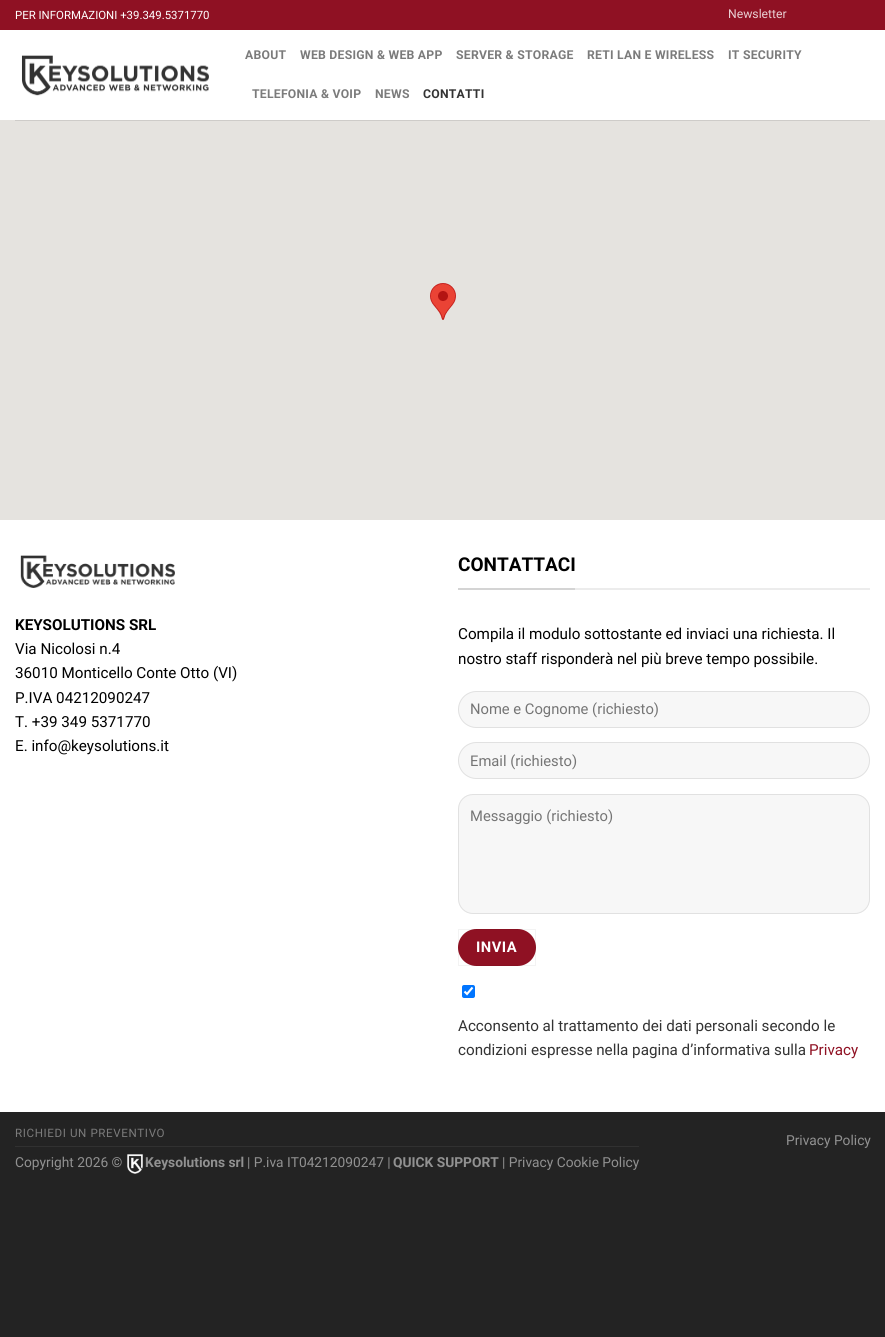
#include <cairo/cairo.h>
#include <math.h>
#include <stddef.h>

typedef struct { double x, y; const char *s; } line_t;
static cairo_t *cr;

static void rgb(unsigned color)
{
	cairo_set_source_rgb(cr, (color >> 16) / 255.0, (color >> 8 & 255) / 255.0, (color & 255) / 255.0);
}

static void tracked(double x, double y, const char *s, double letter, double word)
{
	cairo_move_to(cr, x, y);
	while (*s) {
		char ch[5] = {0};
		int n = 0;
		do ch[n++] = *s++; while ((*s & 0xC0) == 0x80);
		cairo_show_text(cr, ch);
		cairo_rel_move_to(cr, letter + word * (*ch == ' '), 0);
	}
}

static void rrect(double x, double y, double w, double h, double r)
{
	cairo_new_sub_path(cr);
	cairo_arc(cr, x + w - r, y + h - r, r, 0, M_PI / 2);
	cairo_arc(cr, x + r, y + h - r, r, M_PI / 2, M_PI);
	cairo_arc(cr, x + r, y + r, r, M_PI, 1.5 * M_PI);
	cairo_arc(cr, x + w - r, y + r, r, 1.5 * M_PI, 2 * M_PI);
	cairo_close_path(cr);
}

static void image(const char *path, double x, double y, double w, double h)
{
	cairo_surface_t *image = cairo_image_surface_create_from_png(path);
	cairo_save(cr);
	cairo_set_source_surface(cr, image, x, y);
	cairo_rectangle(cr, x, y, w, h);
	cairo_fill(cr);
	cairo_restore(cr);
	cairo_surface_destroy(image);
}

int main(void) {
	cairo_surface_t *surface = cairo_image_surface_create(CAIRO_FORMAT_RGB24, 885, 1337);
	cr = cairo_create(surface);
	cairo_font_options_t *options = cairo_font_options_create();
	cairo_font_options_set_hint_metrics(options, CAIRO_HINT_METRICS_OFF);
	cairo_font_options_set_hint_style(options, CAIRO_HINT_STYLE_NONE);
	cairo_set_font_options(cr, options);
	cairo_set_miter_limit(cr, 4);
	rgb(0x232323);
	cairo_paint(cr);
	rgb(0xffffff);
	cairo_rectangle(cr, 0, 30, 885, 1082);
	cairo_fill(cr);
	rgb(0x8f1123);
	cairo_rectangle(cr, 0, 0, 885, 30);
	cairo_fill(cr);
	image("img/1.png", 21, 55, 188, 41);
	rgb(0xe5e3df);
	cairo_rectangle(cr, 0, 120, 885, 400);
	cairo_fill(cr);
	rgb(0xceccc9);
	cairo_rectangle(cr, 15, 120, 855, 1);
	cairo_fill(cr);
	image("img/2.png", 430, 283, 26, 37);
	image("img/3.png", 20, 555, 155, 33);
	rgb(0xececec);
	cairo_rectangle(cr, 575, 588, 295, 2);
	cairo_fill(cr);
	rgb(0xd4d4d4);
	cairo_rectangle(cr, 458, 588, 117, 2);
	cairo_fill(cr);
	rgb(0xf7f7f7);
	rrect(458, 691, 412, 37, 18.5);
	cairo_fill(cr);
	rrect(458.5, 691.5, 411, 36, 18);
	cairo_set_source_rgba(cr, 0, 0, 0, 0.09);
	cairo_set_line_width(cr, 1);
	cairo_stroke(cr);
	rgb(0xf7f7f7);
	rrect(458, 742, 412, 37, 18.5);
	cairo_fill(cr);
	rrect(458.5, 742.5, 411, 36, 18);
	cairo_set_source_rgba(cr, 0, 0, 0, 0.09);
	cairo_stroke(cr);
	rgb(0xf7f7f7);
	rrect(458, 794, 412, 120, 15);
	cairo_fill(cr);
	rrect(458.5, 794.5, 411, 119, 14.5);
	cairo_set_source_rgba(cr, 0, 0, 0, 0.09);
	cairo_stroke(cr);
	rgb(0x8f1123);
	rrect(458, 929, 78, 37, 18.5);
	cairo_fill(cr);
	cairo_rectangle(cr, 458.5, 929.5, 77, 36);
	cairo_set_source_rgba(cr, 0, 0, 0, 0.05);
	cairo_stroke(cr);
	rgb(0x0075ff);
	rrect(462, 985, 13, 13, 2);
	cairo_fill(cr);
	cairo_new_path(cr);
	cairo_move_to(cr, 464.5, 991.5);
	cairo_line_to(cr, 467, 994);
	cairo_line_to(cr, 472.5, 987.5);
	rgb(0xffffff);
	cairo_set_line_width(cr, 2.1);
	cairo_stroke(cr);
	rgb(0x313131);
	cairo_rectangle(cr, 15, 1146, 624, 1);
	cairo_fill(cr);
	image("img/4.png", 127, 1154, 16, 20);
	cairo_select_font_face(cr, "Roboto", CAIRO_FONT_SLANT_NORMAL, CAIRO_FONT_WEIGHT_NORMAL);
	cairo_set_font_size(cr, 11.4);
	rgb(0xffffff);
	cairo_move_to(cr, 15, 19);
	cairo_show_text(cr, "PER INFORMAZIONI +39.349.5371770");
	cairo_set_font_size(cr, 12.2);
	rgb(0xe9cfd3);
	cairo_move_to(cr, 728, 18);
	cairo_show_text(cr, "Newsletter");
	cairo_select_font_face(cr, "Roboto", CAIRO_FONT_SLANT_NORMAL, CAIRO_FONT_WEIGHT_BOLD);
	rgb(0x7b7b7b);
	{
		static const line_t items[] = {
			{245, 59, "ABOUT"},
			{300, 59, "WEB DESIGN & WEB APP"},
			{456, 59, "SERVER & STORAGE"},
			{587, 59, "RETI LAN E WIRELESS"},
			{728, 59, "IT SECURITY"},
			{252, 98, "TELEFONIA & VOIP"},
			{375, 98, "NEWS"},
		};
		for (size_t i = 0; i < sizeof items / sizeof *items; i++) {
			tracked(items[i].x, items[i].y, items[i].s, 0.25, 0);
		}
	}
	rgb(0x333333);
	tracked(423, 98, "CONTATTI", 0.25, 0);
	cairo_set_font_size(cr, 15.2);
	rgb(0x000000);
	cairo_move_to(cr, 15, 630);
	cairo_show_text(cr, "KEYSOLUTIONS SRL");
	cairo_select_font_face(cr, "Roboto", CAIRO_FONT_SLANT_NORMAL, CAIRO_FONT_WEIGHT_NORMAL);
	{
		static const line_t items[] = {
			{15, 654, "Via Nicolosi n.4"},
			{15, 678, "36010 Monticello Conte Otto (VI)"},
			{15, 703, "P.IVA 04212090247"},
			{15, 727, "T. +39 349 5371770"},
			{15, 751, "E. info@keysolutions.it"},
		};
		for (size_t i = 0; i < sizeof items / sizeof *items; i++) {
			cairo_move_to(cr, items[i].x, items[i].y);
			cairo_show_text(cr, items[i].s);
		}
	}
	cairo_select_font_face(cr, "Roboto", CAIRO_FONT_SLANT_NORMAL, CAIRO_FONT_WEIGHT_BOLD);
	cairo_set_font_size(cr, 19);
	cairo_move_to(cr, 458, 571);
	cairo_show_text(cr, "CONTATTACI");
	cairo_select_font_face(cr, "Roboto", CAIRO_FONT_SLANT_NORMAL, CAIRO_FONT_WEIGHT_NORMAL);
	cairo_set_font_size(cr, 15.2);
	cairo_move_to(cr, 458, 639);
	cairo_show_text(cr, "Compila il modulo sottostante ed inviaci una richiesta. Il");
	cairo_move_to(cr, 458, 664);
	cairo_show_text(cr, "nostro staff risponderà nel più breve tempo possibile.");
	cairo_set_font_size(cr, 14.75);
	rgb(0x757575);
	{
		static const line_t items[] = {
			{470, 714, "Nome e Cognome (richiesto)"},
			{470, 766, "Email (richiesto)"},
			{470, 821, "Messaggio (richiesto)"},
		};
		for (size_t i = 0; i < sizeof items / sizeof *items; i++) {
			cairo_move_to(cr, items[i].x, items[i].y);
			cairo_show_text(cr, items[i].s);
		}
	}
	cairo_select_font_face(cr, "Roboto", CAIRO_FONT_SLANT_NORMAL, CAIRO_FONT_WEIGHT_BOLD);
	rgb(0xffffff);
	tracked(476, 952, "INVIA", 0.5, 0);
	cairo_select_font_face(cr, "Roboto", CAIRO_FONT_SLANT_NORMAL, CAIRO_FONT_WEIGHT_NORMAL);
	cairo_set_font_size(cr, 15.2);
	rgb(0x333333);
	cairo_move_to(cr, 458, 1031);
	cairo_show_text(cr, "Acconsento al trattamento dei dati personali secondo le");
	cairo_move_to(cr, 458, 1055);
	cairo_show_text(cr, "condizioni espresse nella pagina d’informativa sulla");
	rgb(0x8f1123);
	cairo_move_to(cr, 809, 1055);
	cairo_show_text(cr, "Privacy");
	cairo_set_font_size(cr, 11.6);
	rgb(0x7b7b7b);
	tracked(15, 1137, "RICHIEDI UN PREVENTIVO", 0.6, 0);
	cairo_set_font_size(cr, 13.75);
	rgb(0x919191);
	cairo_move_to(cr, 15, 1167);
	cairo_show_text(cr, "Copyright 2026 ©");
	cairo_select_font_face(cr, "Roboto", CAIRO_FONT_SLANT_NORMAL, CAIRO_FONT_WEIGHT_BOLD);
	cairo_move_to(cr, 145, 1167);
	cairo_show_text(cr, "Keysolutions srl");
	cairo_select_font_face(cr, "Roboto", CAIRO_FONT_SLANT_NORMAL, CAIRO_FONT_WEIGHT_NORMAL);
	cairo_move_to(cr, 247, 1167);
	cairo_show_text(cr, "| P.iva IT04212090247 |");
	cairo_select_font_face(cr, "Roboto", CAIRO_FONT_SLANT_NORMAL, CAIRO_FONT_WEIGHT_BOLD);
	cairo_move_to(cr, 393, 1167);
	cairo_show_text(cr, "QUICK SUPPORT");
	cairo_select_font_face(cr, "Roboto", CAIRO_FONT_SLANT_NORMAL, CAIRO_FONT_WEIGHT_NORMAL);
	cairo_move_to(cr, 502, 1167);
	cairo_show_text(cr, "| Privacy Cookie Policy");
	cairo_move_to(cr, 786, 1145);
	cairo_show_text(cr, "Privacy Policy");
	cairo_surface_write_to_png(surface, "page.png");
	cairo_font_options_destroy(options);
	cairo_destroy(cr);
	cairo_surface_destroy(surface);
	return 0;
}
